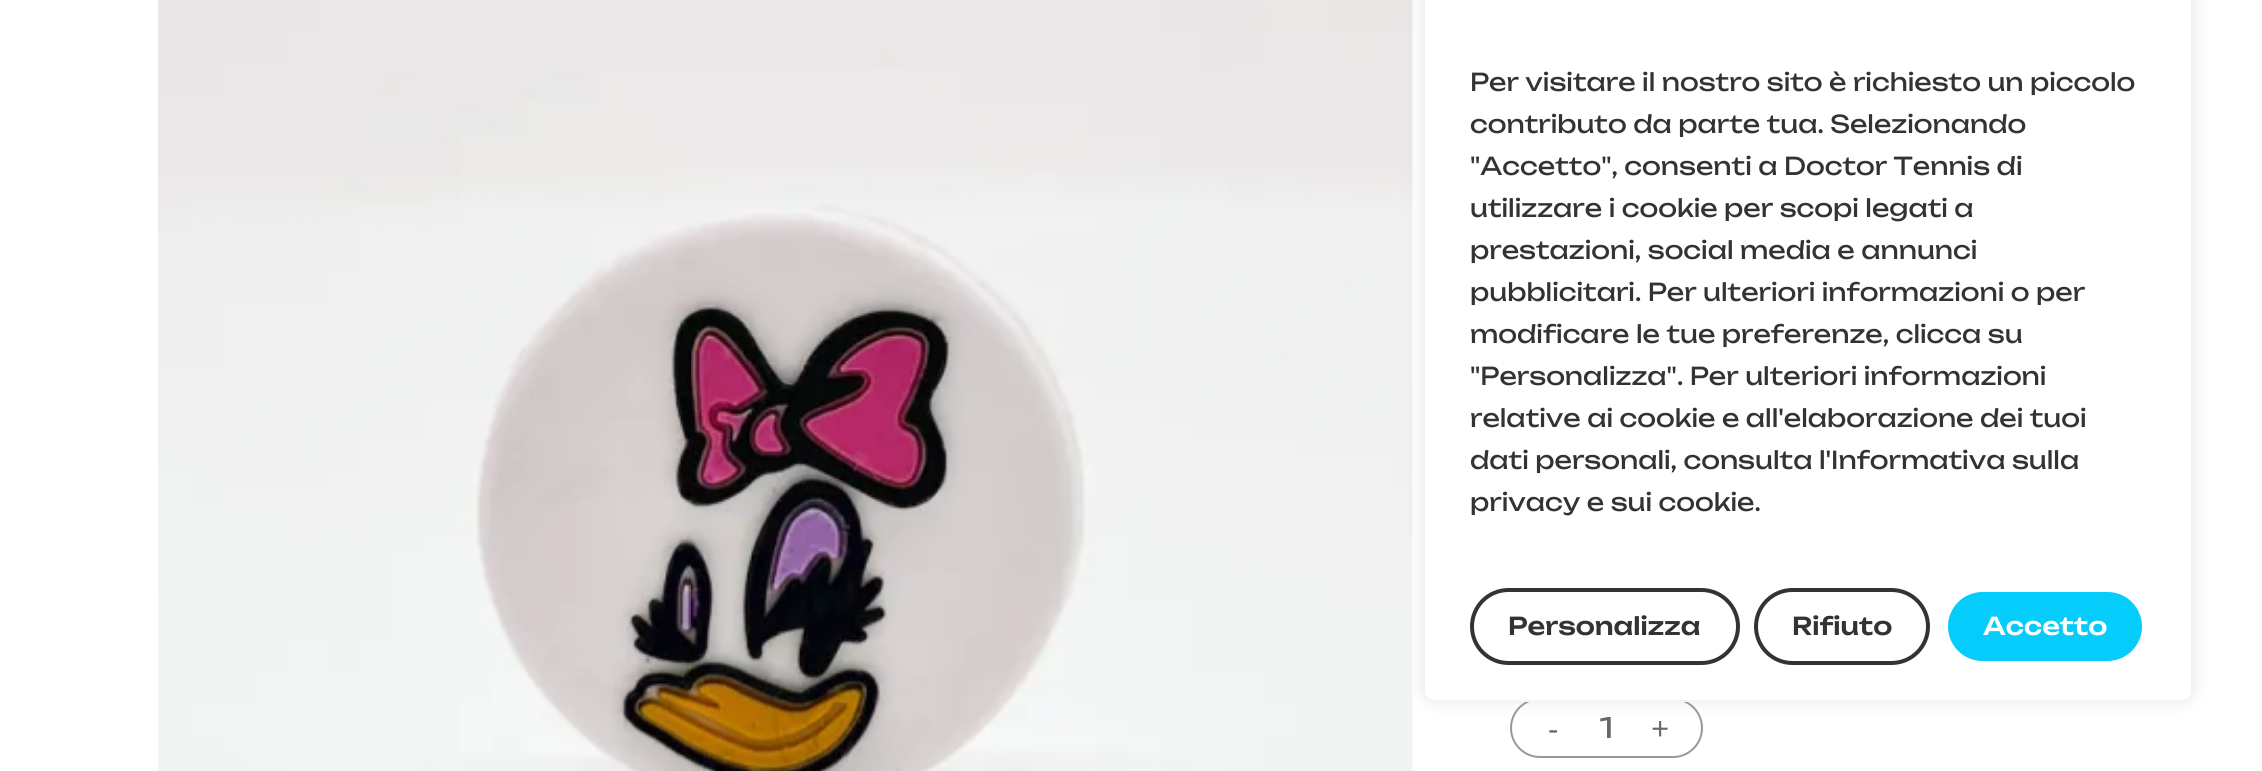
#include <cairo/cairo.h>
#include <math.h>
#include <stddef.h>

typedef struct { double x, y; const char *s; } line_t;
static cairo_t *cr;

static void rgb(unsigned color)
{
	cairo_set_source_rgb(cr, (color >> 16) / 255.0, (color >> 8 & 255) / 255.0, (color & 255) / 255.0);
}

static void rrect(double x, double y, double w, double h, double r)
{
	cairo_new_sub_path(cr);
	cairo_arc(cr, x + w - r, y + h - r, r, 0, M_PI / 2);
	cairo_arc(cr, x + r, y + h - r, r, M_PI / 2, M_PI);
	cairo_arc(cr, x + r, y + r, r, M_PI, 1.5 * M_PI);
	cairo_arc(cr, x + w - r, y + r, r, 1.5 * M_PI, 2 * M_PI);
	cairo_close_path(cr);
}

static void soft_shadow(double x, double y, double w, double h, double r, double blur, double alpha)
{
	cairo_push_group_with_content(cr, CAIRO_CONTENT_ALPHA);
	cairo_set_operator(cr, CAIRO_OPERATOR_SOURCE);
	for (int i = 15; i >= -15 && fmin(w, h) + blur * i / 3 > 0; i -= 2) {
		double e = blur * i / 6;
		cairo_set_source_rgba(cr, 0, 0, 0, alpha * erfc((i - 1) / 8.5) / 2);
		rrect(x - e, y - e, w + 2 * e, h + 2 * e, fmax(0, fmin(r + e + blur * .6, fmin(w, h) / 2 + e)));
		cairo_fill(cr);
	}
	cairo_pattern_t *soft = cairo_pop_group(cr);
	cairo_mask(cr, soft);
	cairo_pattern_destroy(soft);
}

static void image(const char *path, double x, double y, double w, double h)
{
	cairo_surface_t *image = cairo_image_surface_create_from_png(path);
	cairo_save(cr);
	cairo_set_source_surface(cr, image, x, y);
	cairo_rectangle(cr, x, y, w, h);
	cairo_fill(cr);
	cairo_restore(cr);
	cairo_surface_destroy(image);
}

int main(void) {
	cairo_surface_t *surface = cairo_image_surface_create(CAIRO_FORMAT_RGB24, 2262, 771);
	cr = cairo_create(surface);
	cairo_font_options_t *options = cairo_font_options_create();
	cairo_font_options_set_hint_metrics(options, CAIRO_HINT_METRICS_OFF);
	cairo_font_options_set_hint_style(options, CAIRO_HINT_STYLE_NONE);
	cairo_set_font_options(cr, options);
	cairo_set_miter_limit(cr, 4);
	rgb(0xffffff);
	cairo_paint(cr);
	image("img/1.png", 158, 0, 1255, 771);
	rrect(1511, 699, 191, 58, 29);
	rgb(0x999999);
	cairo_stroke(cr);
	rgb(0xacabab);
	soft_shadow(1423, -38, 770, 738, 11, 9, 0.3);
	rgb(0xffffff);
	rrect(1424, -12, 768, 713, 10);
	cairo_fill_preserve(cr);
	rgb(0xf4f4f4);
	cairo_stroke(cr);
	rrect(1472, 590, 266, 73, 36.5);
	rgb(0x333333);
	cairo_set_line_width(cr, 4);
	cairo_stroke(cr);
	rrect(1756, 590, 172, 73, 36.5);
	cairo_stroke(cr);
	rgb(0x06ccfb);
	rrect(1946, 590, 198, 73, 36.5);
	cairo_fill_preserve(cr);
	rgb(0xffffff);
	cairo_stroke(cr);
	cairo_select_font_face(cr, "Unbounded", CAIRO_FONT_SLANT_NORMAL, CAIRO_FONT_WEIGHT_NORMAL);
	cairo_set_font_size(cr, 24.5);
	rgb(0x333333);
	{
		static const line_t items[] = {
			{1470, 91, "Per visitare il nostro sito è richiesto un piccolo"},
			{1470, 133, "contributo da parte tua. Selezionando"},
			{1470, 175, "\"Accetto\", consenti a Doctor Tennis di"},
			{1470, 217, "utilizzare i cookie per scopi legati a"},
			{1470, 259, "prestazioni, social media e annunci"},
			{1470, 301, "pubblicitari. Per ulteriori informazioni o per"},
			{1470, 343, "modificare le tue preferenze, clicca su"},
			{1470, 385, "\"Personalizza\". Per ulteriori informazioni"},
			{1470, 427, "relative ai cookie e all'elaborazione dei tuoi"},
			{1470, 469, "dati personali, consulta l'Informativa sulla"},
			{1470, 511, "privacy e sui cookie."},
		};
		for (size_t i = 0; i < sizeof items / sizeof *items; i++) {
			cairo_move_to(cr, items[i].x, items[i].y);
			cairo_show_text(cr, items[i].s);
		}
	}
	cairo_select_font_face(cr, "Unbounded Medium", CAIRO_FONT_SLANT_NORMAL, CAIRO_FONT_WEIGHT_NORMAL);
	cairo_move_to(cr, 1508, 635);
	cairo_show_text(cr, "Personalizza");
	cairo_move_to(cr, 1792, 635);
	cairo_show_text(cr, "Rifiuto");
	rgb(0xffffff);
	cairo_move_to(cr, 1983, 635);
	cairo_show_text(cr, "Accetto");
	cairo_select_font_face(cr, "Open Sans", CAIRO_FONT_SLANT_NORMAL, CAIRO_FONT_WEIGHT_NORMAL);
	cairo_set_font_size(cr, 32);
	rgb(0x676767);
	cairo_move_to(cr, 1548, 740);
	cairo_show_text(cr, "-");
	cairo_select_font_face(cr, "Unbounded", CAIRO_FONT_SLANT_NORMAL, CAIRO_FONT_WEIGHT_NORMAL);
	cairo_set_font_size(cr, 28);
	cairo_move_to(cr, 1600, 738);
	cairo_show_text(cr, "1");
	cairo_select_font_face(cr, "Open Sans", CAIRO_FONT_SLANT_NORMAL, CAIRO_FONT_WEIGHT_NORMAL);
	cairo_set_font_size(cr, 32);
	cairo_move_to(cr, 1651, 740);
	cairo_show_text(cr, "+");
	cairo_surface_write_to_png(surface, "page.png");
	cairo_font_options_destroy(options);
	cairo_destroy(cr);
	cairo_surface_destroy(surface);
	return 0;
}
